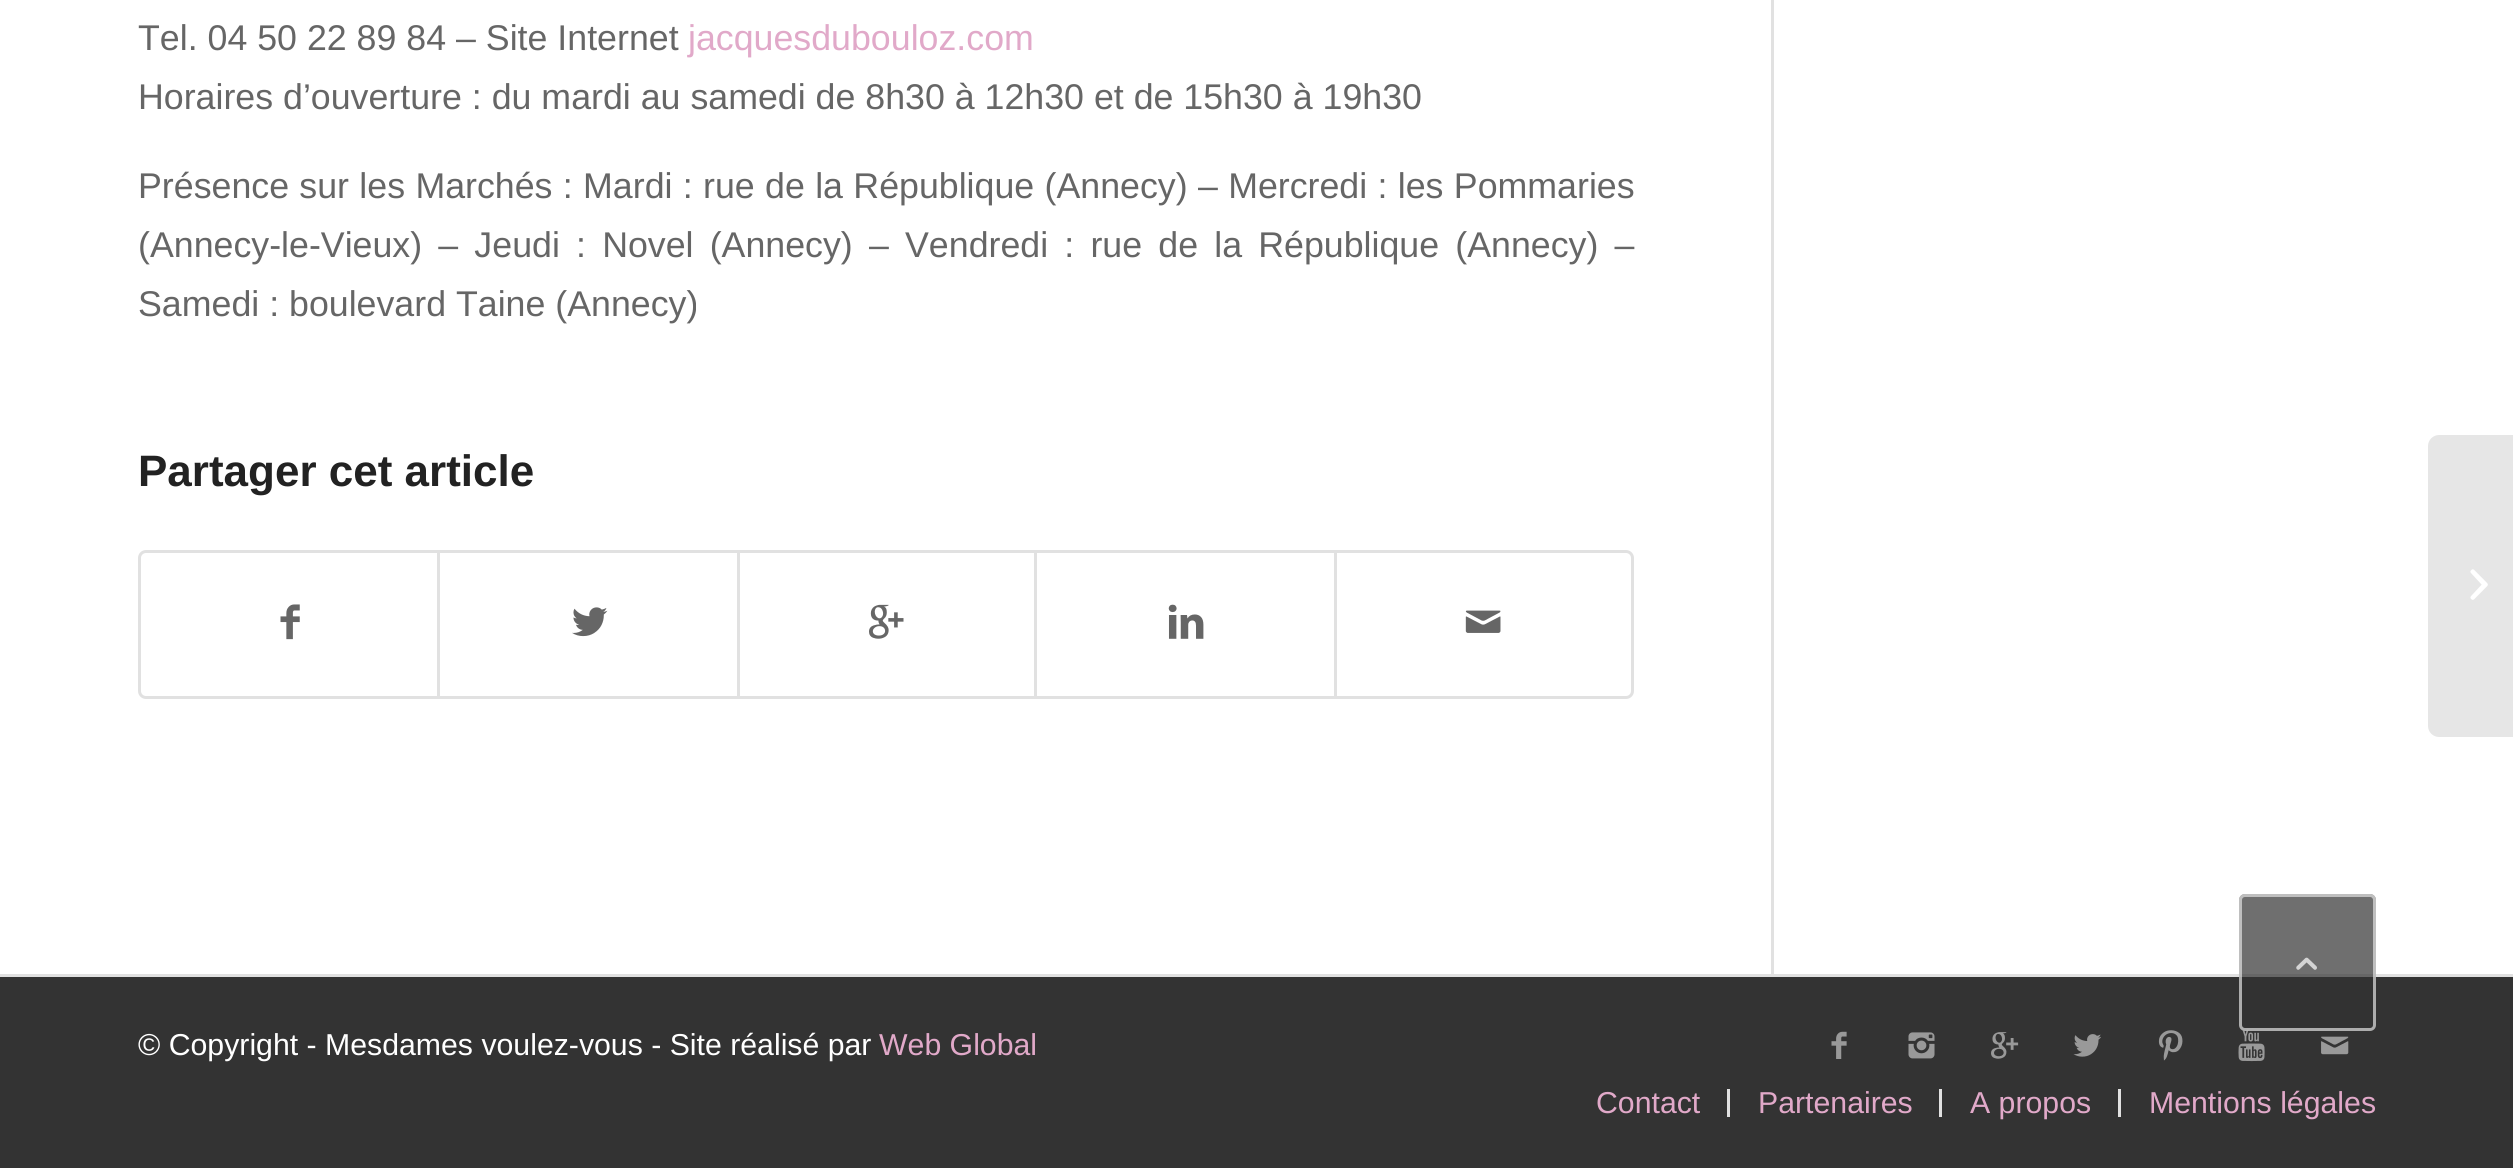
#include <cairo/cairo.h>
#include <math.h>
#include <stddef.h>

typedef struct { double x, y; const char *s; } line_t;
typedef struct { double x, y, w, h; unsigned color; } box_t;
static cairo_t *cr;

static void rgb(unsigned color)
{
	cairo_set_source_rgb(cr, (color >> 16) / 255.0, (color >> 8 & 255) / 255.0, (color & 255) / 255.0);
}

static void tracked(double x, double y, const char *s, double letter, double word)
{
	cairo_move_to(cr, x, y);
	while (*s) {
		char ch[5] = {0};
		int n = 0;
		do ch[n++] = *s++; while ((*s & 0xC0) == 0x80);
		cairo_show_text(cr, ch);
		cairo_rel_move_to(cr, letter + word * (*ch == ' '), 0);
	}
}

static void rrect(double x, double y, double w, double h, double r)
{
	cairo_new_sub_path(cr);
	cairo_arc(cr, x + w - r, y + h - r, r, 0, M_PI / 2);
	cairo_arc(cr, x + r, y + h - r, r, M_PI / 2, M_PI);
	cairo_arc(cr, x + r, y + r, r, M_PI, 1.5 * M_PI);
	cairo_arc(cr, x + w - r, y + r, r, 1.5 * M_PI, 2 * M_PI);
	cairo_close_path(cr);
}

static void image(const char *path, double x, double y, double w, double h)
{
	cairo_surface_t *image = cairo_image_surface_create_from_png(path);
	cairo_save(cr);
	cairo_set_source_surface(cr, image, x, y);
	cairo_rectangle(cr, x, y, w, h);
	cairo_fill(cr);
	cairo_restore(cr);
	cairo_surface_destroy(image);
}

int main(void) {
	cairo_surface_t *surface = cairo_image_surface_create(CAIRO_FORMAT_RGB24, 2513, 1168);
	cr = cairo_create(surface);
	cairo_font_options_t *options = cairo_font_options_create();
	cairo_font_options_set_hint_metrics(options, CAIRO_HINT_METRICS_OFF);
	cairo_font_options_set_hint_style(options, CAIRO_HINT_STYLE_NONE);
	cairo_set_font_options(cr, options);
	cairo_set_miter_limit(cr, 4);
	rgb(0xffffff);
	cairo_paint(cr);
	rgb(0xe1e1e1);
	cairo_rectangle(cr, 1771, 0, 3, 974);
	cairo_fill(cr);
	rrect(139.5, 551.5, 1493, 146, 6.5);
	cairo_set_line_width(cr, 3);
	cairo_stroke(cr);
	image("img/1.png", 280, 604, 20, 36);
	cairo_rectangle(cr, 437, 553, 3, 143);
	cairo_fill(cr);
	image("img/2.png", 572, 607, 36, 30);
	cairo_rectangle(cr, 737, 553, 3, 143);
	cairo_fill(cr);
	image("img/3.png", 869, 604, 35, 35);
	cairo_rectangle(cr, 1034, 553, 3, 143);
	cairo_fill(cr);
	image("img/4.png", 1168, 604, 36, 35);
	cairo_rectangle(cr, 1334, 553, 3, 143);
	cairo_fill(cr);
	image("img/5.png", 1465, 610, 36, 23);
	rgb(0x333333);
	cairo_rectangle(cr, 0, 977, 2513, 191);
	cairo_fill(cr);
	rgb(0xe1e1e1);
	cairo_rectangle(cr, 0, 974, 2513, 3);
	cairo_fill(cr);
	image("img/6.png", 1831, 1031, 16, 28);
	image("img/7.png", 1908, 1032, 27, 27);
	image("img/8.png", 1991, 1032, 28, 27);
	image("img/9.png", 2073, 1034, 28, 23);
	image("img/10.png", 2158, 1030, 25, 31);
	image("img/11.png", 2238, 1029, 27, 33);
	image("img/12.png", 2321, 1036, 28, 19);
	{
		static const box_t items[] = {
			{1727, 1089, 3, 28, 0xe1e1e1},
			{1939, 1089, 3, 28, 0xe1e1e1},
			{2118, 1089, 3, 28, 0xe1e1e1},
		};
		for (size_t i = 0; i < sizeof items / sizeof *items; i++) {
			rgb(items[i].color);
			cairo_rectangle(cr, items[i].x, items[i].y, items[i].w, items[i].h);
			cairo_fill(cr);
		}
	}
	rgb(0xe6e6e6);
	cairo_new_path(cr);
	cairo_move_to(cr, 2439, 435);
	cairo_line_to(cr, 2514, 435);
	cairo_line_to(cr, 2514, 737);
	cairo_line_to(cr, 2439, 737);
	cairo_curve_to(cr, 2433, 737, 2428, 732, 2428, 726);
	cairo_line_to(cr, 2428, 446);
	cairo_curve_to(cr, 2428, 440, 2433, 435, 2439, 435);
	cairo_close_path(cr);
	cairo_fill(cr);
	image("img/13.png", 2470, 569, 18, 31);
	cairo_set_source_rgba(cr, 0.2, 0.2, 0.2, 0.7);
	rrect(2239, 894, 137, 137, 6);
	cairo_fill(cr);
	rrect(2240.5, 895.5, 134, 134, 4.5);
	cairo_set_source_rgba(cr, 0.882, 0.882, 0.882, 0.7);
	cairo_stroke(cr);
	image("img/14.png", 2296, 957, 21, 13);
	cairo_select_font_face(cr, "Liberation Sans", CAIRO_FONT_SLANT_NORMAL, CAIRO_FONT_WEIGHT_NORMAL);
	cairo_set_font_size(cr, 35.75);
	rgb(0x666666);
	cairo_move_to(cr, 138, 50);
	cairo_show_text(cr, "Tel. 04 50 22 89 84 – Site Internet");
	rgb(0xe1a9c9);
	cairo_move_to(cr, 688, 50);
	cairo_show_text(cr, "jacquesdubouloz.com");
	rgb(0x666666);
	cairo_move_to(cr, 138, 109);
	cairo_show_text(cr, "Horaires d’ouverture : du mardi au samedi de 8h30 à 12h30 et de 15h30 à 19h30");
	tracked(138, 198, "Présence sur les Marchés : Mardi : rue de la République (Annecy) – Mercredi : les Pommaries", 0, 0.4);
	tracked(138, 257, "(Annecy-le-Vieux) – Jeudi : Novel (Annecy) – Vendredi : rue de la République (Annecy) –", 0, 6.25);
	cairo_move_to(cr, 138, 316);
	cairo_show_text(cr, "Samedi : boulevard Taine (Annecy)");
	cairo_select_font_face(cr, "Liberation Sans", CAIRO_FONT_SLANT_NORMAL, CAIRO_FONT_WEIGHT_BOLD);
	cairo_set_font_size(cr, 44);
	rgb(0x222222);
	cairo_move_to(cr, 138, 486);
	cairo_show_text(cr, "Partager cet article");
	cairo_select_font_face(cr, "Liberation Sans", CAIRO_FONT_SLANT_NORMAL, CAIRO_FONT_WEIGHT_NORMAL);
	cairo_set_font_size(cr, 30.25);
	rgb(0xffffff);
	cairo_move_to(cr, 138, 1055);
	cairo_show_text(cr, "© Copyright - Mesdames voulez-vous - Site réalisé par");
	rgb(0xe1a9c9);
	{
		static const line_t items[] = {
			{879, 1055, "Web Global"},
			{1596, 1113, "Contact"},
			{1758, 1113, "Partenaires"},
			{1970, 1113, "A propos"},
			{2149, 1113, "Mentions légales"},
		};
		for (size_t i = 0; i < sizeof items / sizeof *items; i++) {
			cairo_move_to(cr, items[i].x, items[i].y);
			cairo_show_text(cr, items[i].s);
		}
	}
	cairo_surface_write_to_png(surface, "page.png");
	cairo_font_options_destroy(options);
	cairo_destroy(cr);
	cairo_surface_destroy(surface);
	return 0;
}
